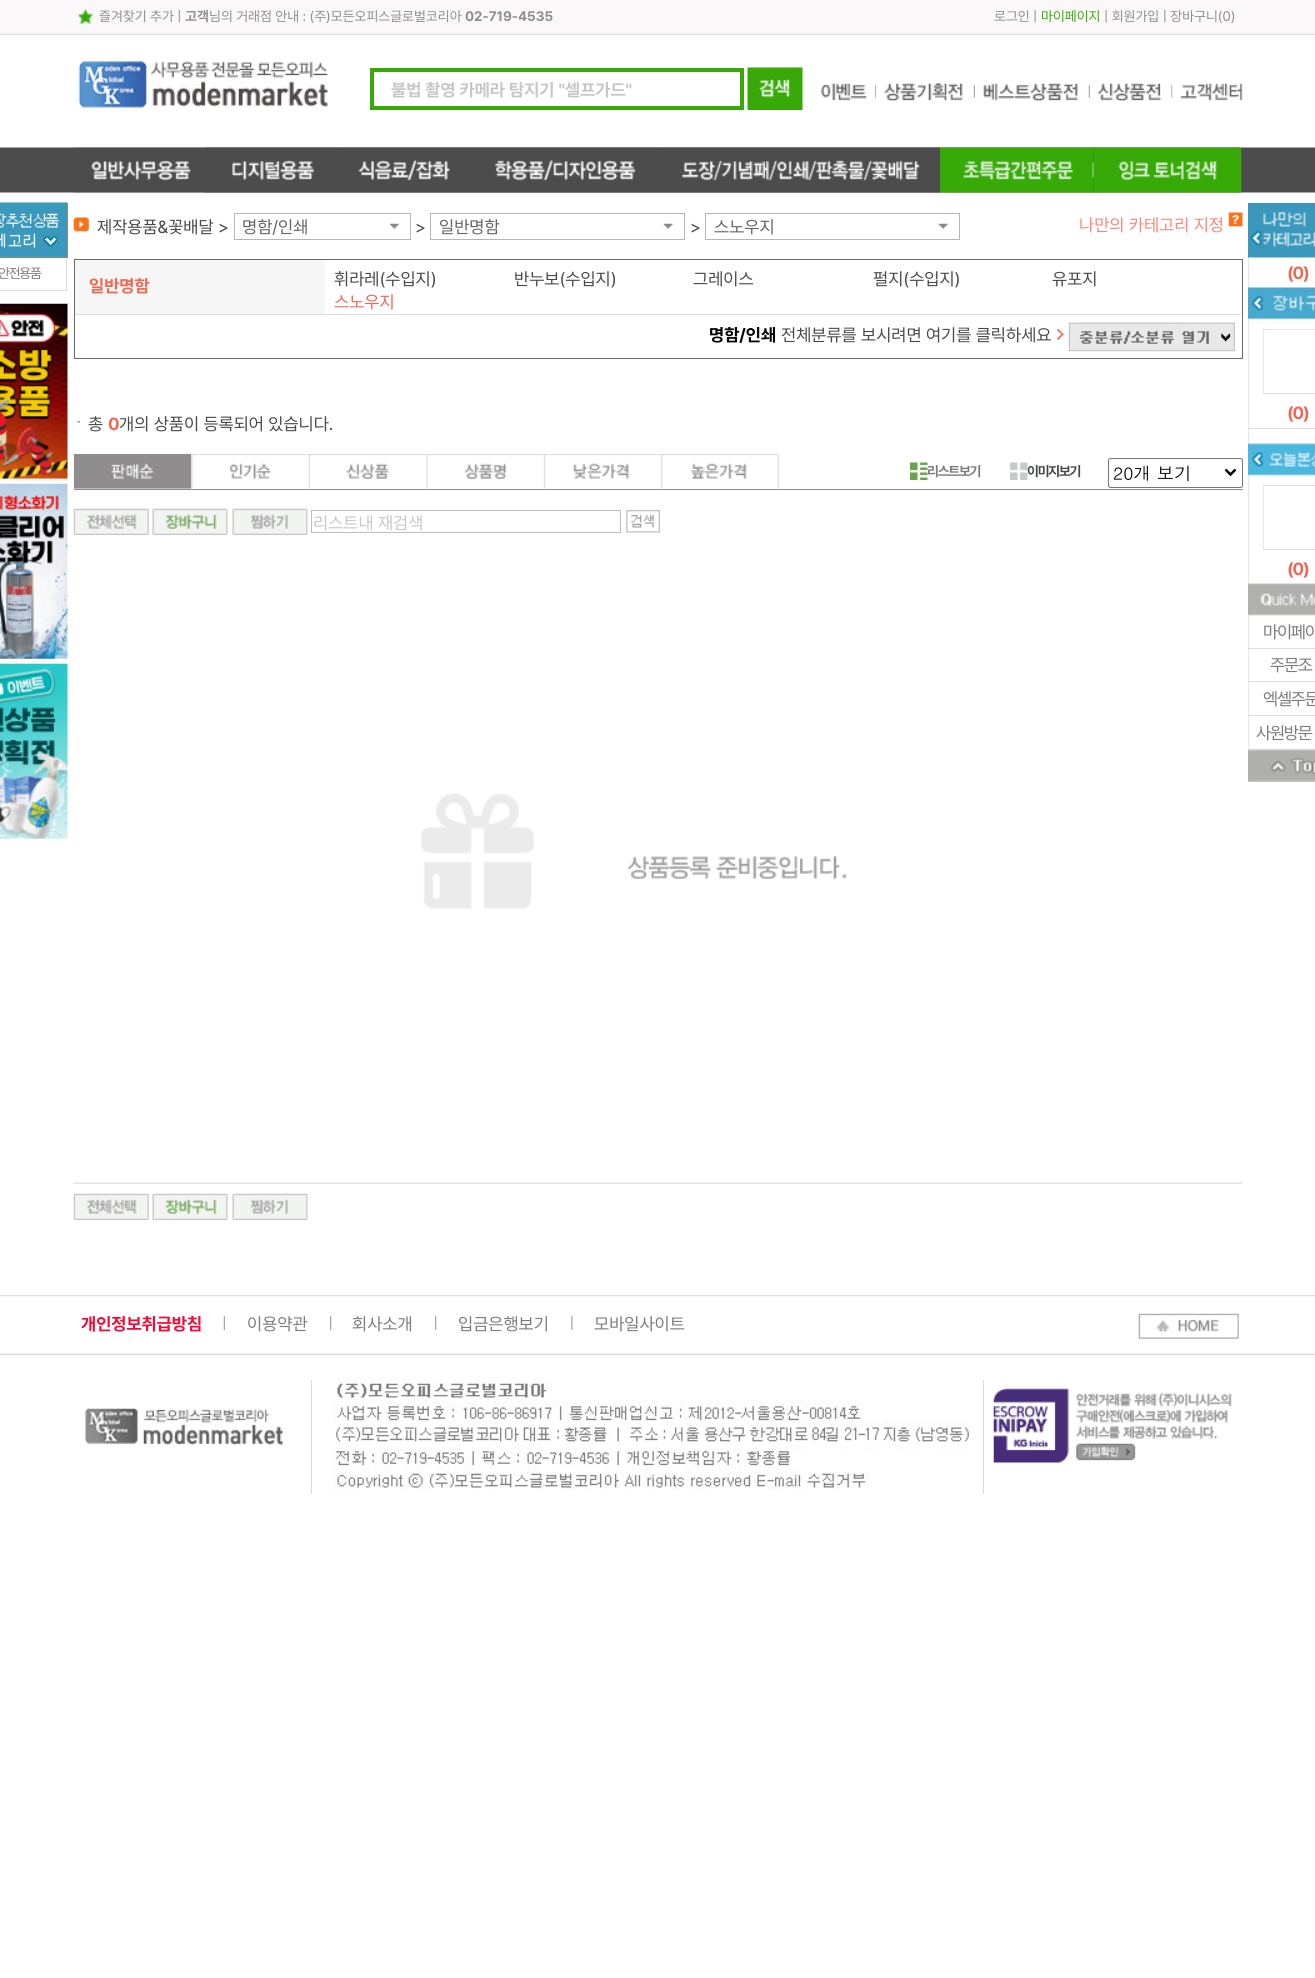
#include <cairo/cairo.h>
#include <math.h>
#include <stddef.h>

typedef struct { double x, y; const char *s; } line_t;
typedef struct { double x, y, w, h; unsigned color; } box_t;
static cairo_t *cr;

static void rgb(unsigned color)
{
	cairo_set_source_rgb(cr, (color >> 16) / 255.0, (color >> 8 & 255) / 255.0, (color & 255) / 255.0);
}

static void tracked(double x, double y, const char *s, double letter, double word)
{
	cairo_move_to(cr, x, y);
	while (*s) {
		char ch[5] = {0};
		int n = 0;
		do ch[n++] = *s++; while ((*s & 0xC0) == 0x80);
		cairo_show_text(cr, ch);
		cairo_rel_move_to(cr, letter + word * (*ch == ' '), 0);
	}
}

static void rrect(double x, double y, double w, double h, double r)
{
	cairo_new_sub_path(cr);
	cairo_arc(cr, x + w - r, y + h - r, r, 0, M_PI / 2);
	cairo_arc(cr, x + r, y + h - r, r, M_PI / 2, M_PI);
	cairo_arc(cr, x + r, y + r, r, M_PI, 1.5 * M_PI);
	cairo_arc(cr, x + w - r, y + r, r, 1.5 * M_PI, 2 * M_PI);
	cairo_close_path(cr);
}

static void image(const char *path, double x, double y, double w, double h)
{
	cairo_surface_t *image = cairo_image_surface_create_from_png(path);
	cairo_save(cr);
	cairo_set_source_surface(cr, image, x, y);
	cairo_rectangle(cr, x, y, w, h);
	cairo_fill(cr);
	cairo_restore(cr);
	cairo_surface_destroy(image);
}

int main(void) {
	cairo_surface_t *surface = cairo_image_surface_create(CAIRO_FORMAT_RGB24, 1315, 1978);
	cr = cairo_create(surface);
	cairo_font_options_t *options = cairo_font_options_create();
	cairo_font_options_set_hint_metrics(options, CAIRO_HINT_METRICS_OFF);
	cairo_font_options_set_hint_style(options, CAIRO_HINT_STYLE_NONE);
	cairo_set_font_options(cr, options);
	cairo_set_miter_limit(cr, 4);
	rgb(0xffffff);
	cairo_paint(cr);
	image("img/1.png", 0, 0, 1315, 193);
	image("img/2.png", 77, 8, 16, 16);
	image("img/3.png", 78, 61, 250, 47);
	cairo_rectangle(cr, 372, 70, 370, 38);
	rgb(0x37aa08);
	cairo_set_line_width(cr, 4);
	cairo_stroke(cr);
	image("img/4.png", 747, 67, 56, 43);
	image("img/5.png", 821, 83, 56, 18);
	image("img/6.png", 876, 82, 99, 19);
	image("img/7.png", 983, 83, 107, 18);
	image("img/8.png", 1097, 83, 76, 18);
	image("img/9.png", 1172, 83, 71, 18);
	image("img/10.png", 74, 147, 131, 46);
	image("img/11.png", 205, 147, 133, 46);
	image("img/12.png", 337, 147, 133, 46);
	image("img/13.png", 470, 147, 188, 46);
	image("img/14.png", 657, 147, 283, 46);
	image("img/15.png", 940, 147, 154, 46);
	image("img/16.png", 1093, 147, 149, 46);
	image("img/17.png", 73, 217, 16, 15);
	image("img/18.png", 390, 223, 9, 6);
	cairo_rectangle(cr, 234.5, 213.5, 176, 26);
	rgb(0xb5b5b5);
	cairo_set_line_width(cr, 1);
	cairo_stroke(cr);
	image("img/19.png", 663, 223, 10, 6);
	cairo_rectangle(cr, 430.5, 213.5, 254, 26);
	cairo_stroke(cr);
	image("img/20.png", 938, 223, 10, 6);
	cairo_rectangle(cr, 705.5, 213.5, 254, 26);
	cairo_stroke(cr);
	image("img/21.png", 1228, 212, 15, 15);
	rgb(0xd08856);
	cairo_rectangle(cr, 0, 203, 68, 55);
	cairo_fill(cr);
	image("img/22.png", 0, 202, 68, 56);
	rgb(0xdcdcdc);
	cairo_rectangle(cr, 66, 258, 1, 33);
	cairo_fill(cr);
	cairo_rectangle(cr, 0, 290, 68, 1);
	cairo_fill(cr);
	image("img/23.png", 0, 303, 68, 176);
	image("img/24.png", 0, 478, 68, 186);
	image("img/25.png", 0, 663, 68, 176);
	cairo_rectangle(cr, 74.5, 259.5, 1168, 99);
	rgb(0x6a6a6a);
	cairo_stroke(cr);
	rgb(0xf6f6f6);
	cairo_rectangle(cr, 75, 260, 250, 54);
	cairo_fill(cr);
	rgb(0xdddddd);
	cairo_rectangle(cr, 75, 314, 1166, 1);
	cairo_fill(cr);
	image("img/26.png", 1057, 328, 7, 12);
	image("img/27.png", 1068, 322, 167, 30);
	image("img/28.png", 1248, 257, 2, 525);
	image("img/29.png", 1248, 203, 67, 55);
	image("img/30.png", 1248, 287, 67, 33);
	cairo_rectangle(cr, 1263.5, 329.5, 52, 64);
	cairo_stroke(cr);
	image("img/31.png", 1263, 329, 52, 64);
	cairo_rectangle(cr, 1248, 428, 67, 1);
	cairo_fill(cr);
	image("img/32.png", 1249, 444, 9, 1);
	image("img/33.png", 1248, 443, 67, 33);
	cairo_rectangle(cr, 1263.5, 485.5, 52, 64);
	cairo_stroke(cr);
	image("img/34.png", 1263, 485, 52, 65);
	image("img/35.png", 1248, 583, 67, 33);
	{
		static const box_t items[] = {
			{1248, 648, 67, 1, 0xdddddd},
			{1248, 681, 67, 1, 0xdddddd},
			{1248, 715, 67, 1, 0xdddddd},
			{1248, 749, 67, 1, 0xdddddd},
		};
		for (size_t i = 0; i < sizeof items / sizeof *items; i++) {
			rgb(items[i].color);
			cairo_rectangle(cr, items[i].x, items[i].y, items[i].w, items[i].h);
			cairo_fill(cr);
		}
	}
	image("img/36.png", 1248, 749, 67, 33);
	image("img/37.png", 77, 421, 3, 2);
	rgb(0x8f8d8d);
	cairo_rectangle(cr, 74, 489, 1169, 1);
	cairo_fill(cr);
	image("img/38.png", 73, 453, 119, 36);
	image("img/39.png", 191, 454, 118, 35);
	image("img/40.png", 308, 454, 119, 35);
	image("img/41.png", 426, 454, 118, 35);
	image("img/42.png", 543, 454, 119, 35);
	image("img/43.png", 661, 454, 118, 35);
	image("img/44.png", 910, 462, 18, 18);
	image("img/45.png", 1010, 462, 18, 18);
	rrect(1108.5, 458.5, 134, 29, 2);
	rgb(0x767676);
	cairo_stroke(cr);
	cairo_new_path(cr);
	cairo_move_to(cr, 1225.5, 469.5);
	cairo_line_to(cr, 1230.5, 474.5);
	cairo_line_to(cr, 1235.5, 469.5);
	rgb(0x000000);
	cairo_set_line_width(cr, 2.5);
	cairo_stroke(cr);
	image("img/46.png", 73, 508, 76, 27);
	image("img/47.png", 152, 508, 76, 27);
	image("img/48.png", 232, 508, 76, 27);
	cairo_rectangle(cr, 311.5, 510.5, 309, 22);
	rgb(0xbfbfbf);
	cairo_set_line_width(cr, 1);
	cairo_stroke(cr);
	image("img/49.png", 626, 510, 34, 23);
	image("img/50.png", 73, 793, 1170, 391);
	image("img/46.png", 73, 1193, 76, 27);
	image("img/47.png", 152, 1193, 76, 27);
	image("img/48.png", 232, 1193, 76, 27);
	image("img/51.png", 0, 1295, 1315, 60);
	image("img/52.png", 223, 1316, 2, 14);
	image("img/53.png", 330, 1316, 2, 14);
	image("img/53.png", 435, 1316, 2, 14);
	image("img/54.png", 571, 1316, 2, 14);
	image("img/55.png", 1138, 1313, 101, 26);
	image("img/56.png", 85, 1408, 198, 38);
	rgb(0xdcdcdc);
	cairo_rectangle(cr, 983, 1380, 1, 114);
	cairo_fill(cr);
	cairo_rectangle(cr, 311, 1380, 1, 114);
	cairo_fill(cr);
	image("img/57.png", 333, 1380, 636, 110);
	image("img/58.png", 993, 1388, 239, 75);
	cairo_select_font_face(cr, "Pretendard", CAIRO_FONT_SLANT_NORMAL, CAIRO_FONT_WEIGHT_NORMAL);
	cairo_set_font_size(cr, 13.75);
	rgb(0x8f8d8d);
	cairo_move_to(cr, 99, 21);
	cairo_show_text(cr, "즐겨찾기 추가 |");
	cairo_select_font_face(cr, "Pretendard", CAIRO_FONT_SLANT_NORMAL, CAIRO_FONT_WEIGHT_BOLD);
	cairo_move_to(cr, 185, 21);
	cairo_show_text(cr, "고객");
	cairo_select_font_face(cr, "Pretendard", CAIRO_FONT_SLANT_NORMAL, CAIRO_FONT_WEIGHT_NORMAL);
	cairo_move_to(cr, 209, 21);
	cairo_show_text(cr, "님의 거래점 안내 : (주)모든오피스글로벌코리아");
	cairo_select_font_face(cr, "Pretendard", CAIRO_FONT_SLANT_NORMAL, CAIRO_FONT_WEIGHT_BOLD);
	cairo_move_to(cr, 465, 21);
	cairo_show_text(cr, "02-719-4535");
	cairo_select_font_face(cr, "Pretendard", CAIRO_FONT_SLANT_NORMAL, CAIRO_FONT_WEIGHT_NORMAL);
	cairo_move_to(cr, 994, 21);
	cairo_show_text(cr, "로그인 |");
	rgb(0x37aa08);
	cairo_move_to(cr, 1041, 21);
	cairo_show_text(cr, "마이페이지");
	rgb(0x8f8d8d);
	cairo_move_to(cr, 1104, 21);
	cairo_show_text(cr, "| 회원가입 | 장바구니(0)");
	cairo_select_font_face(cr, "Pretendard", CAIRO_FONT_SLANT_NORMAL, CAIRO_FONT_WEIGHT_BOLD);
	cairo_set_font_size(cr, 17.5);
	rgb(0xc7c7c8);
	cairo_move_to(cr, 391, 96);
	cairo_show_text(cr, "불법 촬영 카메라 탐지기 \"셀프가드\"");
	cairo_select_font_face(cr, "Pretendard", CAIRO_FONT_SLANT_NORMAL, CAIRO_FONT_WEIGHT_NORMAL);
	rgb(0x47484c);
	cairo_move_to(cr, 97, 233);
	cairo_show_text(cr, "제작용품&꽃배달 >");
	rgb(0x646262);
	cairo_move_to(cr, 242, 233);
	cairo_show_text(cr, "명함/인쇄");
	rgb(0x47484c);
	cairo_move_to(cr, 415, 233);
	cairo_show_text(cr, ">");
	rgb(0x646262);
	cairo_move_to(cr, 439, 233);
	cairo_show_text(cr, "일반명함");
	rgb(0x47484c);
	cairo_move_to(cr, 690, 233);
	cairo_show_text(cr, ">");
	rgb(0x646262);
	cairo_move_to(cr, 714, 233);
	cairo_show_text(cr, "스노우지");
	rgb(0xfb8674);
	cairo_move_to(cr, 1079, 231);
	cairo_show_text(cr, "나만의 카테고리 지정");
	cairo_set_font_size(cr, 13.75);
	rgb(0x7b7b7b);
	tracked(-2, 278, "안전용품", -1.25, 0);
	cairo_select_font_face(cr, "Pretendard", CAIRO_FONT_SLANT_NORMAL, CAIRO_FONT_WEIGHT_BOLD);
	cairo_set_font_size(cr, 17.5);
	rgb(0xf06754);
	cairo_move_to(cr, 89, 292);
	cairo_show_text(cr, "일반명함");
	cairo_select_font_face(cr, "Pretendard", CAIRO_FONT_SLANT_NORMAL, CAIRO_FONT_WEIGHT_NORMAL);
	rgb(0x47484c);
	{
		static const line_t items[] = {
			{334, 285, "휘라레(수입지)"},
			{514, 285, "반누보(수입지)"},
			{693, 285, "그레이스"},
			{873, 285, "펄지(수입지)"},
			{1052, 285, "유포지"},
		};
		for (size_t i = 0; i < sizeof items / sizeof *items; i++) {
			cairo_move_to(cr, items[i].x, items[i].y);
			cairo_show_text(cr, items[i].s);
		}
	}
	rgb(0xf06754);
	cairo_move_to(cr, 334, 308);
	cairo_show_text(cr, "스노우지");
	cairo_select_font_face(cr, "Pretendard", CAIRO_FONT_SLANT_NORMAL, CAIRO_FONT_WEIGHT_BOLD);
	rgb(0x000000);
	cairo_move_to(cr, 709, 341);
	cairo_show_text(cr, "명함/인쇄");
	cairo_select_font_face(cr, "Pretendard", CAIRO_FONT_SLANT_NORMAL, CAIRO_FONT_WEIGHT_NORMAL);
	rgb(0x47484c);
	cairo_move_to(cr, 781, 341);
	cairo_show_text(cr, "전체분류를 보시려면 여기를 클릭하세요");
	cairo_select_font_face(cr, "Pretendard", CAIRO_FONT_SLANT_NORMAL, CAIRO_FONT_WEIGHT_BOLD);
	rgb(0xf06754);
	{
		static const line_t items[] = {
			{1287, 279, "(0)"},
			{1287, 419, "(0)"},
			{1287, 575, "(0)"},
		};
		for (size_t i = 0; i < sizeof items / sizeof *items; i++) {
			tracked(items[i].x, items[i].y, items[i].s, -1.25, 0);
		}
	}
	cairo_select_font_face(cr, "Pretendard", CAIRO_FONT_SLANT_NORMAL, CAIRO_FONT_WEIGHT_NORMAL);
	rgb(0x7b7b7b);
	{
		static const line_t items[] = {
			{1263, 638, "마이페이"},
			{1270, 671, "주문조"},
			{1263, 705, "엑셀주문"},
			{1256, 739, "사원방문"},
		};
		for (size_t i = 0; i < sizeof items / sizeof *items; i++) {
			tracked(items[i].x, items[i].y, items[i].s, -1.25, 0);
		}
	}
	rgb(0x47484c);
	cairo_move_to(cr, 88, 430);
	cairo_show_text(cr, "총");
	cairo_select_font_face(cr, "Pretendard", CAIRO_FONT_SLANT_NORMAL, CAIRO_FONT_WEIGHT_BOLD);
	rgb(0xf06754);
	cairo_move_to(cr, 108, 430);
	cairo_show_text(cr, "0");
	cairo_select_font_face(cr, "Pretendard", CAIRO_FONT_SLANT_NORMAL, CAIRO_FONT_WEIGHT_NORMAL);
	rgb(0x47484c);
	cairo_move_to(cr, 119, 430);
	cairo_show_text(cr, "개의 상품이 등록되어 있습니다.");
	cairo_select_font_face(cr, "Pretendard", CAIRO_FONT_SLANT_NORMAL, CAIRO_FONT_WEIGHT_BOLD);
	cairo_set_font_size(cr, 13.75);
	rgb(0x7b7b7b);
	tracked(927, 476, "리스트보기", -1.25, 0);
	rgb(0x47484c);
	tracked(1027, 476, "이미지보기", -1.25, 0);
	cairo_select_font_face(cr, "Dotum", CAIRO_FONT_SLANT_NORMAL, CAIRO_FONT_WEIGHT_NORMAL);
	cairo_set_font_size(cr, 17.5);
	rgb(0x000000);
	cairo_move_to(cr, 1113, 480);
	cairo_show_text(cr, "20개 보기");
	cairo_select_font_face(cr, "Pretendard", CAIRO_FONT_SLANT_NORMAL, CAIRO_FONT_WEIGHT_NORMAL);
	rgb(0xc7c7c8);
	cairo_move_to(cr, 313, 529);
	cairo_show_text(cr, "리스트내 재검색");
	cairo_select_font_face(cr, "Pretendard", CAIRO_FONT_SLANT_NORMAL, CAIRO_FONT_WEIGHT_BOLD);
	rgb(0xf60935);
	cairo_move_to(cr, 81, 1330);
	cairo_show_text(cr, "개인정보취급방침");
	cairo_select_font_face(cr, "Pretendard", CAIRO_FONT_SLANT_NORMAL, CAIRO_FONT_WEIGHT_NORMAL);
	rgb(0x7b7b7b);
	{
		static const line_t items[] = {
			{247, 1330, "이용약관"},
			{352, 1330, "회사소개"},
			{458, 1330, "입금은행보기"},
			{594, 1330, "모바일사이트"},
		};
		for (size_t i = 0; i < sizeof items / sizeof *items; i++) {
			cairo_move_to(cr, items[i].x, items[i].y);
			cairo_show_text(cr, items[i].s);
		}
	}
	cairo_surface_write_to_png(surface, "page.png");
	cairo_font_options_destroy(options);
	cairo_destroy(cr);
	cairo_surface_destroy(surface);
	return 0;
}
